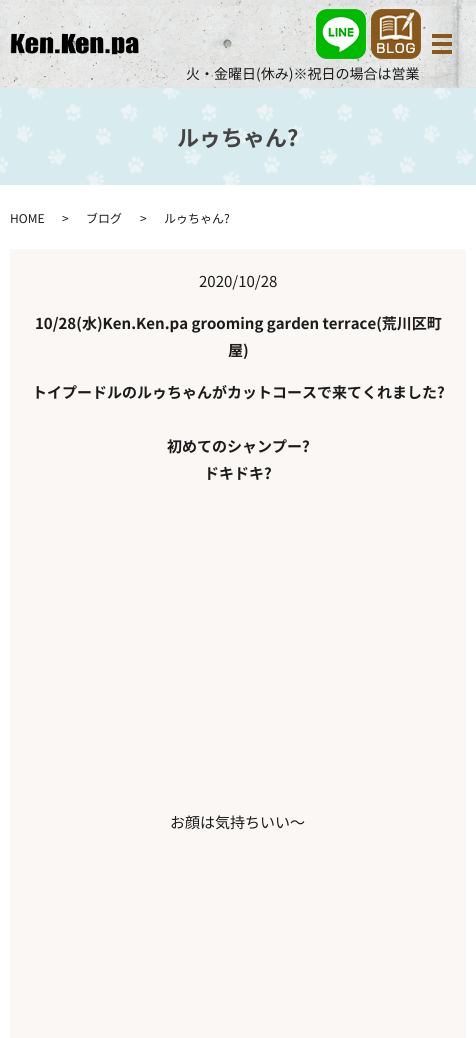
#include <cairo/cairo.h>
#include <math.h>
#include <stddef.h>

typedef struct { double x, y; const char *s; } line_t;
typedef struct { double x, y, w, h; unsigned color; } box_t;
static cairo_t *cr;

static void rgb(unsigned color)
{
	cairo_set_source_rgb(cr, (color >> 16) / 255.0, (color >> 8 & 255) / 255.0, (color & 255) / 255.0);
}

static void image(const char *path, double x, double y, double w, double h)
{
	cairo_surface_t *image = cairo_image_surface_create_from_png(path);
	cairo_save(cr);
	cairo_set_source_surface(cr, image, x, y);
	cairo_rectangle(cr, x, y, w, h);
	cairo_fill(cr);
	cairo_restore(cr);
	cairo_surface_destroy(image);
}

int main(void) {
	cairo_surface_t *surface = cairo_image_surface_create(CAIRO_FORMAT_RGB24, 476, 1038);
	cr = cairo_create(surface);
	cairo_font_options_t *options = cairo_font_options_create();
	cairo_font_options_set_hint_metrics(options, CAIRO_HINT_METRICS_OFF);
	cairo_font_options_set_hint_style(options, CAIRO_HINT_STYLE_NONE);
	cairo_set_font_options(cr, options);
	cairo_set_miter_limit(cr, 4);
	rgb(0xffffff);
	cairo_paint(cr);
	image("img/1.png", 0, 0, 476, 88);
	{
		static const box_t items[] = {
			{432, 34, 20, 4, 0x89581b},
			{432, 42, 20, 4, 0x89581b},
			{432, 50, 20, 4, 0x89581b},
		};
		for (size_t i = 0; i < sizeof items / sizeof *items; i++) {
			rgb(items[i].color);
			cairo_rectangle(cr, items[i].x, items[i].y, items[i].w, items[i].h);
			cairo_fill(cr);
		}
	}
	image("img/2.png", 10, 33, 129, 22);
	image("img/3.png", 316, 9, 50, 50);
	image("img/4.png", 371, 9, 50, 50);
	image("img/5.png", 0, 88, 476, 97);
	rgb(0xfaf7f4);
	cairo_rectangle(cr, 10, 249, 456, 789);
	cairo_fill(cr);
	cairo_select_font_face(cr, "Noto Sans JP", CAIRO_FONT_SLANT_NORMAL, CAIRO_FONT_WEIGHT_NORMAL);
	cairo_set_font_size(cr, 14);
	rgb(0x1b1b1b);
	cairo_move_to(cr, 186, 79);
	cairo_show_text(cr, "火・金曜日(休み)※祝日の場合は営業");
	cairo_select_font_face(cr, "Noto Sans JP", CAIRO_FONT_SLANT_NORMAL, CAIRO_FONT_WEIGHT_BOLD);
	cairo_set_font_size(cr, 22);
	rgb(0x444444);
	cairo_move_to(cr, 177, 146);
	cairo_show_text(cr, "ルゥちゃん?");
	cairo_select_font_face(cr, "Noto Sans JP", CAIRO_FONT_SLANT_NORMAL, CAIRO_FONT_WEIGHT_NORMAL);
	cairo_set_font_size(cr, 12);
	rgb(0x1b1b1b);
	{
		static const line_t items[] = {
			{10, 223, "HOME"},
			{62, 223, ">"},
			{86, 223, "ブログ"},
			{140, 223, ">"},
			{164, 223, "ルゥちゃん?"},
		};
		for (size_t i = 0; i < sizeof items / sizeof *items; i++) {
			cairo_move_to(cr, items[i].x, items[i].y);
			cairo_show_text(cr, items[i].s);
		}
	}
	cairo_set_font_size(cr, 15);
	cairo_move_to(cr, 199, 287);
	cairo_show_text(cr, "2020/10/28");
	cairo_select_font_face(cr, "Noto Sans JP", CAIRO_FONT_SLANT_NORMAL, CAIRO_FONT_WEIGHT_BOLD);
	{
		static const line_t items[] = {
			{35, 329, "10/28(水)Ken.Ken.pa grooming garden terrace(荒川区町"},
			{228, 356, "屋)"},
			{32, 398, "トイプードルのルゥちゃんがカットコースで来てくれました?"},
			{167, 452, "初めてのシャンプー?"},
			{204, 479, "ドキドキ?"},
		};
		for (size_t i = 0; i < sizeof items / sizeof *items; i++) {
			cairo_move_to(cr, items[i].x, items[i].y);
			cairo_show_text(cr, items[i].s);
		}
	}
	cairo_select_font_face(cr, "Noto Sans JP", CAIRO_FONT_SLANT_NORMAL, CAIRO_FONT_WEIGHT_NORMAL);
	cairo_move_to(cr, 170, 828);
	cairo_show_text(cr, "お顔は気持ちいい～");
	cairo_surface_write_to_png(surface, "page.png");
	cairo_font_options_destroy(options);
	cairo_destroy(cr);
	cairo_surface_destroy(surface);
	return 0;
}
